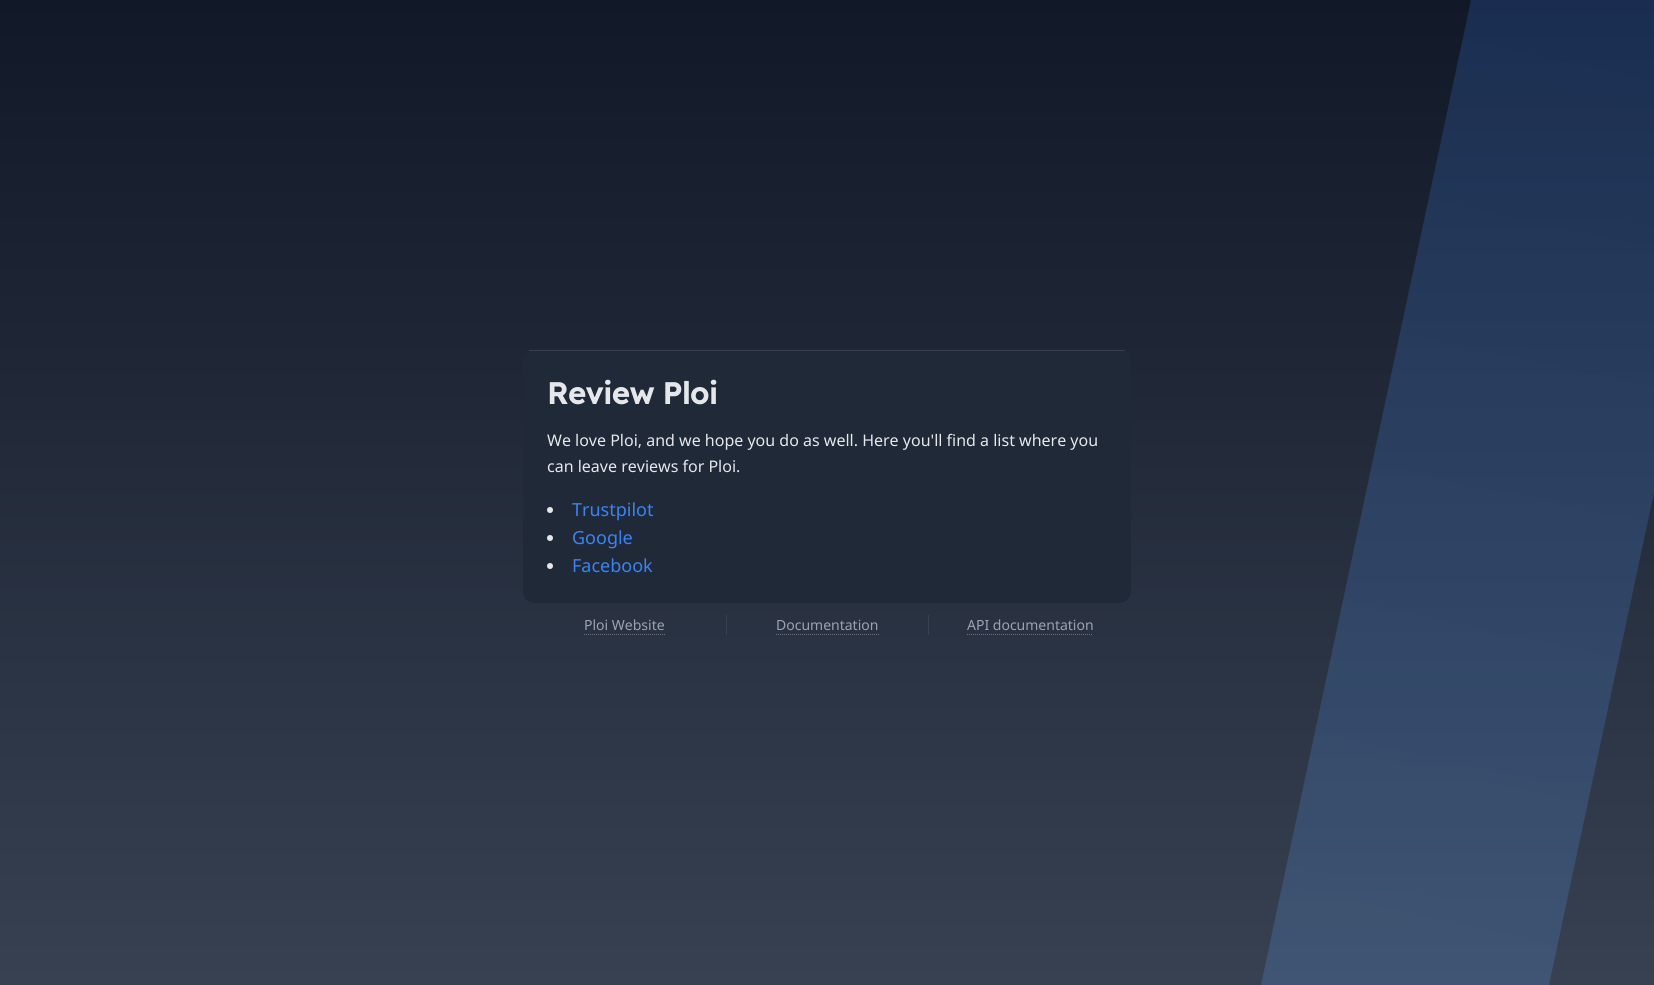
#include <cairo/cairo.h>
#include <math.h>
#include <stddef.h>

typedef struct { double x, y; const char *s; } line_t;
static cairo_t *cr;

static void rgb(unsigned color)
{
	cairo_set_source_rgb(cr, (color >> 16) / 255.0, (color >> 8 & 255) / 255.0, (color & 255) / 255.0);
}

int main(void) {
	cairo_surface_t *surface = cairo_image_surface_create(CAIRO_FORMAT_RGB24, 1654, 985);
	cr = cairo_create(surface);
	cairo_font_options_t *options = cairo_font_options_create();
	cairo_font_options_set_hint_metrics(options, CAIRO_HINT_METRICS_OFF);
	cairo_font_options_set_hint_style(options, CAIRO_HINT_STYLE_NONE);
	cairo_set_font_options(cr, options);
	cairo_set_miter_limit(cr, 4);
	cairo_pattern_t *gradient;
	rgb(0xffffff);
	cairo_paint(cr);
	gradient = cairo_pattern_create_linear(827, 0, 827, 985);
	cairo_pattern_add_color_stop_rgba(gradient, 0, 0.067, 0.094, 0.153, 1);
	cairo_pattern_add_color_stop_rgba(gradient, 1, 0.216, 0.255, 0.318, 1);
	cairo_set_source(cr, gradient);
	cairo_pattern_destroy(gradient);
	cairo_rectangle(cr, 0, 0, 1654, 985);
	cairo_fill(cr);
	rgb(0x1f2937);
	cairo_new_path(cr);
	cairo_move_to(cr, 535, 351);
	cairo_line_to(cr, 1119, 351);
	cairo_curve_to(cr, 1126, 351, 1131, 356, 1131, 362);
	cairo_line_to(cr, 1131, 591);
	cairo_curve_to(cr, 1131, 598, 1126, 603, 1119, 603);
	cairo_line_to(cr, 535, 603);
	cairo_curve_to(cr, 528, 603, 523, 598, 523, 591);
	cairo_line_to(cr, 523, 362);
	cairo_curve_to(cr, 523, 356, 528, 351, 535, 351);
	cairo_close_path(cr);
	cairo_fill(cr);
	rgb(0x374151);
	cairo_rectangle(cr, 529, 350, 596, 1);
	cairo_fill(cr);
	rgb(0xe5e7eb);
	cairo_arc(cr, 550, 510, 3, 0, 2 * M_PI);
	cairo_fill(cr);
	cairo_arc(cr, 550, 538, 3, 0, 2 * M_PI);
	cairo_fill(cr);
	cairo_arc(cr, 550, 566, 3, 0, 2 * M_PI);
	cairo_fill(cr);
	gradient = cairo_pattern_create_linear(1615, 0, 1405, 985);
	cairo_pattern_add_color_stop_rgba(gradient, 0, 0.231, 0.51, 0.965, 0.2);
	cairo_pattern_add_color_stop_rgba(gradient, 1, 0.376, 0.647, 0.98, 0.2);
	cairo_set_source(cr, gradient);
	cairo_pattern_destroy(gradient);
	cairo_new_path(cr);
	cairo_move_to(cr, 1471, 0);
	cairo_line_to(cr, 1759, 0);
	cairo_line_to(cr, 1549, 985);
	cairo_line_to(cr, 1261, 985);
	cairo_close_path(cr);
	cairo_fill(cr);
	cairo_new_path(cr);
	cairo_move_to(cr, 584, 634.5);
	cairo_line_to(cr, 665, 634.5);
	rgb(0x6b7280);
	cairo_set_line_width(cr, 1);
	cairo_set_dash(cr, (double[]){1, 1}, 2, 0);
	cairo_stroke(cr);
	rgb(0x374151);
	cairo_rectangle(cr, 726, 615, 1, 20);
	cairo_fill(cr);
	cairo_new_path(cr);
	cairo_move_to(cr, 776, 634.5);
	cairo_line_to(cr, 879, 634.5);
	rgb(0x6b7280);
	cairo_stroke(cr);
	rgb(0x374151);
	cairo_rectangle(cr, 928, 615, 1, 20);
	cairo_fill(cr);
	cairo_new_path(cr);
	cairo_move_to(cr, 967, 634.5);
	cairo_line_to(cr, 1093, 634.5);
	rgb(0x6b7280);
	cairo_stroke(cr);
	cairo_select_font_face(cr, "Lexend", CAIRO_FONT_SLANT_NORMAL, CAIRO_FONT_WEIGHT_BOLD);
	cairo_set_font_size(cr, 30);
	rgb(0xe5e7eb);
	cairo_move_to(cr, 547, 404);
	cairo_show_text(cr, "Review Ploi");
	cairo_select_font_face(cr, "Noto Sans", CAIRO_FONT_SLANT_NORMAL, CAIRO_FONT_WEIGHT_NORMAL);
	cairo_set_font_size(cr, 16);
	cairo_move_to(cr, 547, 446);
	cairo_show_text(cr, "We love Ploi, and we hope you do as well. Here you'll find a list where you");
	cairo_move_to(cr, 547, 472);
	cairo_show_text(cr, "can leave reviews for Ploi.");
	cairo_set_font_size(cr, 18);
	rgb(0x3b82f6);
	{
		static const line_t items[] = {
			{572, 516, "Trustpilot"},
			{572, 544, "Google"},
			{572, 572, "Facebook"},
		};
		for (size_t i = 0; i < sizeof items / sizeof *items; i++) {
			cairo_move_to(cr, items[i].x, items[i].y);
			cairo_show_text(cr, items[i].s);
		}
	}
	cairo_set_font_size(cr, 14);
	rgb(0x9ca3af);
	{
		static const line_t items[] = {
			{584, 630, "Ploi Website"},
			{776, 630, "Documentation"},
			{967, 630, "API documentation"},
		};
		for (size_t i = 0; i < sizeof items / sizeof *items; i++) {
			cairo_move_to(cr, items[i].x, items[i].y);
			cairo_show_text(cr, items[i].s);
		}
	}
	cairo_surface_write_to_png(surface, "page.png");
	cairo_font_options_destroy(options);
	cairo_destroy(cr);
	cairo_surface_destroy(surface);
	return 0;
}
